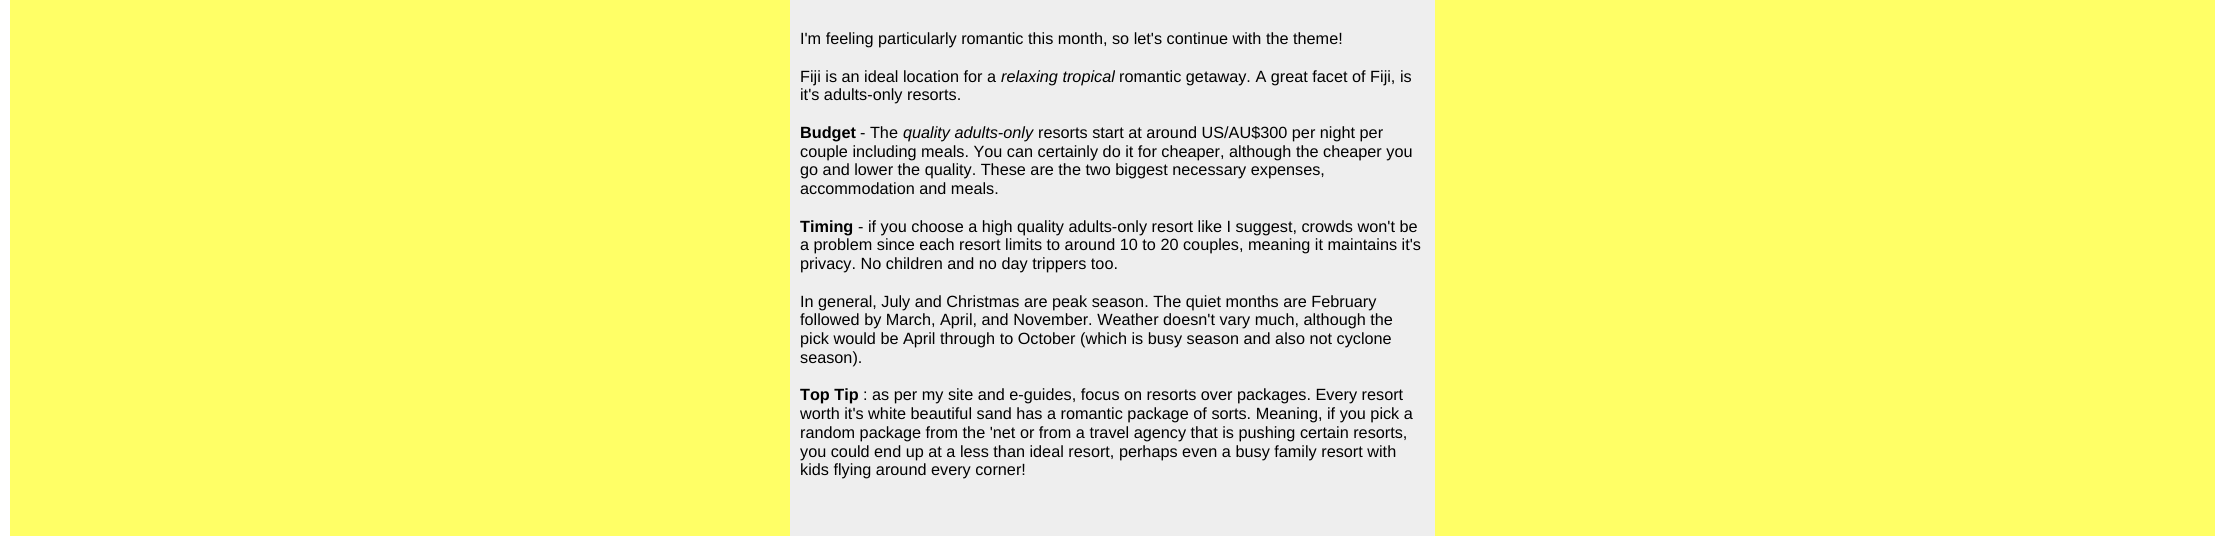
#include <cairo/cairo.h>
#include <math.h>
#include <stddef.h>

typedef struct { double x, y; const char *s; } line_t;
static cairo_t *cr;

static void rgb(unsigned color)
{
	cairo_set_source_rgb(cr, (color >> 16) / 255.0, (color >> 8 & 255) / 255.0, (color & 255) / 255.0);
}

int main(void) {
	cairo_surface_t *surface = cairo_image_surface_create(CAIRO_FORMAT_RGB24, 2225, 536);
	cr = cairo_create(surface);
	cairo_font_options_t *options = cairo_font_options_create();
	cairo_font_options_set_hint_metrics(options, CAIRO_HINT_METRICS_OFF);
	cairo_font_options_set_hint_style(options, CAIRO_HINT_STYLE_NONE);
	cairo_set_font_options(cr, options);
	cairo_set_miter_limit(cr, 4);
	rgb(0xffffff);
	cairo_paint(cr);
	rgb(0xffff66);
	cairo_rectangle(cr, 10, 0, 2205, 536);
	cairo_fill(cr);
	rgb(0xeeeeee);
	cairo_rectangle(cr, 790, 0, 645, 536);
	cairo_fill(cr);
	cairo_select_font_face(cr, "Liberation Sans", CAIRO_FONT_SLANT_NORMAL, CAIRO_FONT_WEIGHT_NORMAL);
	cairo_set_font_size(cr, 16.25);
	rgb(0x000000);
	cairo_move_to(cr, 800, 44);
	cairo_show_text(cr, "I'm feeling particularly romantic this month, so let's continue with the theme!");
	cairo_move_to(cr, 800, 82);
	cairo_show_text(cr, "Fiji is an ideal location for a");
	cairo_select_font_face(cr, "Liberation Sans", CAIRO_FONT_SLANT_ITALIC, CAIRO_FONT_WEIGHT_NORMAL);
	cairo_move_to(cr, 1001, 82);
	cairo_show_text(cr, "relaxing tropical");
	cairo_select_font_face(cr, "Liberation Sans", CAIRO_FONT_SLANT_NORMAL, CAIRO_FONT_WEIGHT_NORMAL);
	cairo_move_to(cr, 1119, 82);
	cairo_show_text(cr, "romantic getaway. A great facet of Fiji, is");
	cairo_move_to(cr, 800, 100);
	cairo_show_text(cr, "it's adults-only resorts.");
	cairo_select_font_face(cr, "Liberation Sans", CAIRO_FONT_SLANT_NORMAL, CAIRO_FONT_WEIGHT_BOLD);
	cairo_move_to(cr, 800, 138);
	cairo_show_text(cr, "Budget");
	cairo_select_font_face(cr, "Liberation Sans", CAIRO_FONT_SLANT_NORMAL, CAIRO_FONT_WEIGHT_NORMAL);
	cairo_move_to(cr, 860, 138);
	cairo_show_text(cr, "- The");
	cairo_select_font_face(cr, "Liberation Sans", CAIRO_FONT_SLANT_ITALIC, CAIRO_FONT_WEIGHT_NORMAL);
	cairo_move_to(cr, 903, 138);
	cairo_show_text(cr, "quality adults-only");
	cairo_select_font_face(cr, "Liberation Sans", CAIRO_FONT_SLANT_NORMAL, CAIRO_FONT_WEIGHT_NORMAL);
	{
		static const line_t items[] = {
			{1038, 138, "resorts start at around US/AU$300 per night per"},
			{800, 157, "couple including meals. You can certainly do it for cheaper, although the cheaper you"},
			{800, 175, "go and lower the quality. These are the two biggest necessary expenses,"},
			{800, 194, "accommodation and meals."},
		};
		for (size_t i = 0; i < sizeof items / sizeof *items; i++) {
			cairo_move_to(cr, items[i].x, items[i].y);
			cairo_show_text(cr, items[i].s);
		}
	}
	cairo_select_font_face(cr, "Liberation Sans", CAIRO_FONT_SLANT_NORMAL, CAIRO_FONT_WEIGHT_BOLD);
	cairo_move_to(cr, 800, 232);
	cairo_show_text(cr, "Timing");
	cairo_select_font_face(cr, "Liberation Sans", CAIRO_FONT_SLANT_NORMAL, CAIRO_FONT_WEIGHT_NORMAL);
	{
		static const line_t items[] = {
			{858, 232, "- if you choose a high quality adults-only resort like I suggest, crowds won't be"},
			{800, 250, "a problem since each resort limits to around 10 to 20 couples, meaning it maintains it's"},
			{800, 269, "privacy. No children and no day trippers too."},
			{800, 307, "In general, July and Christmas are peak season. The quiet months are February"},
			{800, 325, "followed by March, April, and November. Weather doesn't vary much, although the"},
			{800, 344, "pick would be April through to October (which is busy season and also not cyclone"},
			{800, 363, "season)."},
		};
		for (size_t i = 0; i < sizeof items / sizeof *items; i++) {
			cairo_move_to(cr, items[i].x, items[i].y);
			cairo_show_text(cr, items[i].s);
		}
	}
	cairo_select_font_face(cr, "Liberation Sans", CAIRO_FONT_SLANT_NORMAL, CAIRO_FONT_WEIGHT_BOLD);
	cairo_move_to(cr, 800, 400);
	cairo_show_text(cr, "Top Tip");
	cairo_select_font_face(cr, "Liberation Sans", CAIRO_FONT_SLANT_NORMAL, CAIRO_FONT_WEIGHT_NORMAL);
	{
		static const line_t items[] = {
			{863, 400, ": as per my site and e-guides, focus on resorts over packages. Every resort"},
			{800, 419, "worth it's white beautiful sand has a romantic package of sorts. Meaning, if you pick a"},
			{800, 438, "random package from the 'net or from a travel agency that is pushing certain resorts,"},
			{800, 457, "you could end up at a less than ideal resort, perhaps even a busy family resort with"},
			{800, 475, "kids flying around every corner!"},
		};
		for (size_t i = 0; i < sizeof items / sizeof *items; i++) {
			cairo_move_to(cr, items[i].x, items[i].y);
			cairo_show_text(cr, items[i].s);
		}
	}
	cairo_surface_write_to_png(surface, "page.png");
	cairo_font_options_destroy(options);
	cairo_destroy(cr);
	cairo_surface_destroy(surface);
	return 0;
}
